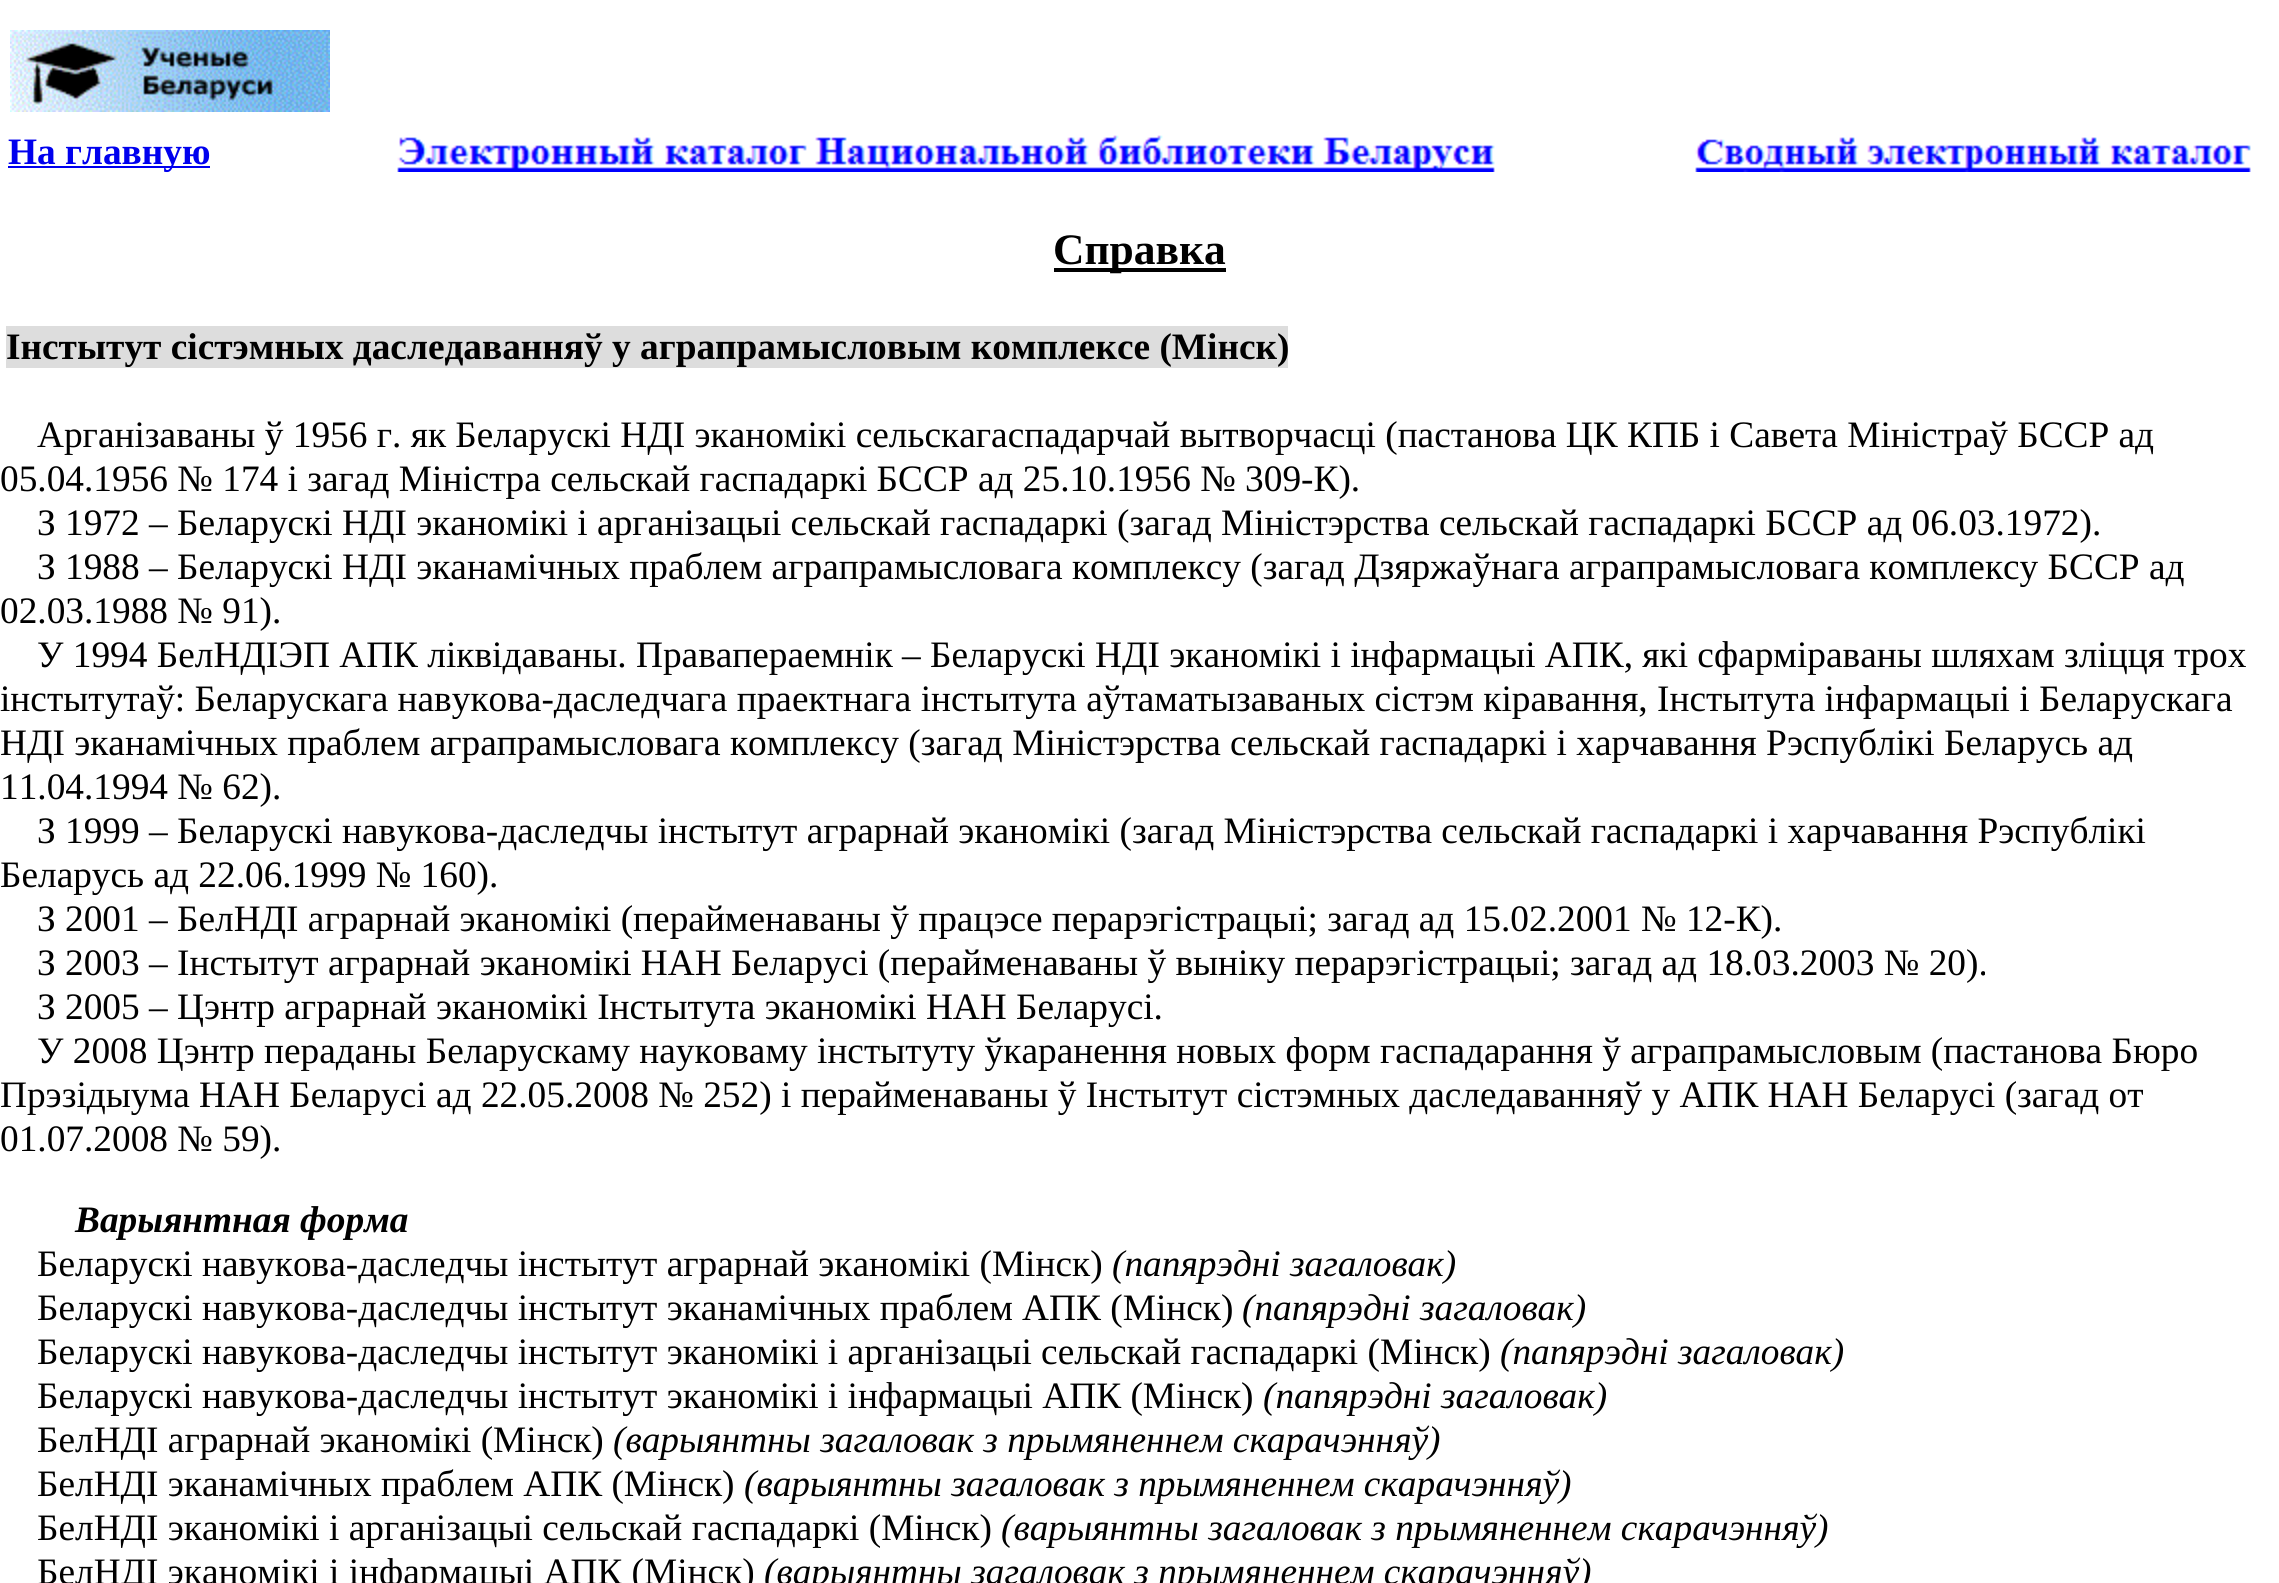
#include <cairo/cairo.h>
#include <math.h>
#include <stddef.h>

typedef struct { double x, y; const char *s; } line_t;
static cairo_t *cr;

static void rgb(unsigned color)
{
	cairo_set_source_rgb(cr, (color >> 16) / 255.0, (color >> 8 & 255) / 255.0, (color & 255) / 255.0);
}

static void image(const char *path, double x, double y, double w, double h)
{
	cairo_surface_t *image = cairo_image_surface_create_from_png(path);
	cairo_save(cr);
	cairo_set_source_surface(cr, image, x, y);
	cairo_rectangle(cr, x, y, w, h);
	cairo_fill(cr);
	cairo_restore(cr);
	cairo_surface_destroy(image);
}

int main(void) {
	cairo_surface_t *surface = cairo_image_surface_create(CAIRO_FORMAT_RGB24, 2279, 1583);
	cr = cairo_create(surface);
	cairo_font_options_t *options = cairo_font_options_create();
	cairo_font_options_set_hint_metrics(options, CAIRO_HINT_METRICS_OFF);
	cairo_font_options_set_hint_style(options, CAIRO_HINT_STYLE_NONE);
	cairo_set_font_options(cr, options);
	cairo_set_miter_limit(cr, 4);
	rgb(0xffffff);
	cairo_paint(cr);
	image("img/1.png", 10, 30, 320, 82);
	rgb(0x0000ee);
	cairo_rectangle(cr, 8, 166, 202, 2);
	cairo_fill(cr);
	image("img/2.png", 397, 135, 1098, 37);
	image("img/3.png", 1695, 137, 556, 35);
	rgb(0x000000);
	cairo_rectangle(cr, 1054, 268, 172, 4);
	cairo_fill(cr);
	rgb(0xdddddd);
	cairo_rectangle(cr, 6, 326, 1282, 42);
	cairo_fill(cr);
	cairo_select_font_face(cr, "Liberation Serif", CAIRO_FONT_SLANT_NORMAL, CAIRO_FONT_WEIGHT_BOLD);
	cairo_set_font_size(cr, 37.33);
	rgb(0x0000ee);
	cairo_move_to(cr, 8, 164);
	cairo_show_text(cr, "На главную");
	cairo_set_font_size(cr, 43.5);
	rgb(0x000000);
	cairo_move_to(cr, 1053, 264);
	cairo_show_text(cr, "Справка");
	cairo_set_font_size(cr, 37.33);
	cairo_move_to(cr, 6, 359);
	cairo_show_text(cr, "Інстытут сістэмных даследаванняў у аграпрамысловым комплексе (Мінск)");
	cairo_select_font_face(cr, "Liberation Serif", CAIRO_FONT_SLANT_NORMAL, CAIRO_FONT_WEIGHT_NORMAL);
	{
		static const line_t items[] = {
			{37, 447, "Арганізаваны ў 1956 г. як Беларускі НДІ эканомікі сельскагаспадарчай вытворчасці (пастанова ЦК КПБ і Савета Міністраў БССР ад"},
			{0, 491, "05.04.1956 № 174 і загад Міністра сельскай гаспадаркі БССР ад 25.10.1956 № 309-К)."},
			{37, 535, "З 1972 – Беларускі НДІ эканомікі і арганізацыі сельскай гаспадаркі (загад Міністэрства сельскай гаспадаркі БССР ад 06.03.1972)."},
			{37, 579, "З 1988 – Беларускі НДІ эканамічных праблем аграпрамысловага комплексу (загад Дзяржаўнага аграпрамысловага комплексу БССР ад"},
			{0, 623, "02.03.1988 № 91)."},
			{37, 667, "У 1994 БелНДІЭП АПК ліквідаваны. Правапераемнік – Беларускі НДІ эканомікі і інфармацыі АПК, які сфарміраваны шляхам зліцця трох"},
			{0, 711, "інстытутаў: Беларускага навукова-даследчага праектнага інстытута аўтаматызаваных сістэм кіравання, Інстытута інфармацыі і Беларускага"},
			{0, 755, "НДІ эканамічных праблем аграпрамысловага комплексу (загад Міністэрства сельскай гаспадаркі і харчавання Рэспублікі Беларусь ад"},
			{0, 799, "11.04.1994 № 62)."},
			{37, 843, "З 1999 – Беларускі навукова-даследчы інстытут аграрнай эканомікі (загад Міністэрства сельскай гаспадаркі і харчавання Рэспублікі"},
			{0, 887, "Беларусь ад 22.06.1999 № 160)."},
			{37, 931, "З 2001 – БелНДІ аграрнай эканомікі (перайменаваны ў працэсе перарэгістрацыі; загад ад 15.02.2001 № 12-К)."},
			{37, 975, "З 2003 – Інстытут аграрнай эканомікі НАН Беларусі (перайменаваны ў выніку перарэгістрацыі; загад ад 18.03.2003 № 20)."},
			{37, 1019, "З 2005 – Цэнтр аграрнай эканомікі Інстытута эканомікі НАН Беларусі."},
			{37, 1063, "У 2008 Цэнтр пераданы Беларускаму науковаму інстытуту ўкаранення новых форм гаспадарання ў аграпрамысловым (пастанова Бюро"},
			{0, 1107, "Прэзідыума НАН Беларусі ад 22.05.2008 № 252) і перайменаваны ў Інстытут сістэмных даследаванняў у АПК НАН Беларусі (загад от"},
			{0, 1151, "01.07.2008 № 59)."},
		};
		for (size_t i = 0; i < sizeof items / sizeof *items; i++) {
			cairo_move_to(cr, items[i].x, items[i].y);
			cairo_show_text(cr, items[i].s);
		}
	}
	cairo_select_font_face(cr, "Liberation Serif", CAIRO_FONT_SLANT_ITALIC, CAIRO_FONT_WEIGHT_BOLD);
	cairo_move_to(cr, 75, 1232);
	cairo_show_text(cr, "Варыянтная форма");
	cairo_select_font_face(cr, "Liberation Serif", CAIRO_FONT_SLANT_NORMAL, CAIRO_FONT_WEIGHT_NORMAL);
	cairo_move_to(cr, 37, 1276);
	cairo_show_text(cr, "Беларускі навукова-даследчы інстытут аграрнай эканомікі (Мінск)");
	cairo_select_font_face(cr, "Liberation Serif", CAIRO_FONT_SLANT_ITALIC, CAIRO_FONT_WEIGHT_NORMAL);
	cairo_move_to(cr, 1112, 1276);
	cairo_show_text(cr, "(папярэдні загаловак)");
	cairo_select_font_face(cr, "Liberation Serif", CAIRO_FONT_SLANT_NORMAL, CAIRO_FONT_WEIGHT_NORMAL);
	cairo_move_to(cr, 37, 1320);
	cairo_show_text(cr, "Беларускі навукова-даследчы інстытут эканамічных праблем АПК (Мінск)");
	cairo_select_font_face(cr, "Liberation Serif", CAIRO_FONT_SLANT_ITALIC, CAIRO_FONT_WEIGHT_NORMAL);
	cairo_move_to(cr, 1242, 1320);
	cairo_show_text(cr, "(папярэдні загаловак)");
	cairo_select_font_face(cr, "Liberation Serif", CAIRO_FONT_SLANT_NORMAL, CAIRO_FONT_WEIGHT_NORMAL);
	cairo_move_to(cr, 37, 1364);
	cairo_show_text(cr, "Беларускі навукова-даследчы інстытут эканомікі і арганізацыі сельскай гаспадаркі (Мінск)");
	cairo_select_font_face(cr, "Liberation Serif", CAIRO_FONT_SLANT_ITALIC, CAIRO_FONT_WEIGHT_NORMAL);
	cairo_move_to(cr, 1500, 1364);
	cairo_show_text(cr, "(папярэдні загаловак)");
	cairo_select_font_face(cr, "Liberation Serif", CAIRO_FONT_SLANT_NORMAL, CAIRO_FONT_WEIGHT_NORMAL);
	cairo_move_to(cr, 37, 1408);
	cairo_show_text(cr, "Беларускі навукова-даследчы інстытут эканомікі і інфармацыі АПК (Мінск)");
	cairo_select_font_face(cr, "Liberation Serif", CAIRO_FONT_SLANT_ITALIC, CAIRO_FONT_WEIGHT_NORMAL);
	cairo_move_to(cr, 1263, 1408);
	cairo_show_text(cr, "(папярэдні загаловак)");
	cairo_select_font_face(cr, "Liberation Serif", CAIRO_FONT_SLANT_NORMAL, CAIRO_FONT_WEIGHT_NORMAL);
	cairo_move_to(cr, 37, 1452);
	cairo_show_text(cr, "БелНДІ аграрнай эканомікі (Мінск)");
	cairo_select_font_face(cr, "Liberation Serif", CAIRO_FONT_SLANT_ITALIC, CAIRO_FONT_WEIGHT_NORMAL);
	cairo_move_to(cr, 613, 1452);
	cairo_show_text(cr, "(варыянтны загаловак з прымяненнем скарачэнняў)");
	cairo_select_font_face(cr, "Liberation Serif", CAIRO_FONT_SLANT_NORMAL, CAIRO_FONT_WEIGHT_NORMAL);
	cairo_move_to(cr, 37, 1496);
	cairo_show_text(cr, "БелНДІ эканамічных праблем АПК (Мінск)");
	cairo_select_font_face(cr, "Liberation Serif", CAIRO_FONT_SLANT_ITALIC, CAIRO_FONT_WEIGHT_NORMAL);
	cairo_move_to(cr, 744, 1496);
	cairo_show_text(cr, "(варыянтны загаловак з прымяненнем скарачэнняў)");
	cairo_select_font_face(cr, "Liberation Serif", CAIRO_FONT_SLANT_NORMAL, CAIRO_FONT_WEIGHT_NORMAL);
	cairo_move_to(cr, 37, 1540);
	cairo_show_text(cr, "БелНДІ эканомікі і арганізацыі сельскай гаспадаркі (Мінск)");
	cairo_select_font_face(cr, "Liberation Serif", CAIRO_FONT_SLANT_ITALIC, CAIRO_FONT_WEIGHT_NORMAL);
	cairo_move_to(cr, 1001, 1540);
	cairo_show_text(cr, "(варыянтны загаловак з прымяненнем скарачэнняў)");
	cairo_select_font_face(cr, "Liberation Serif", CAIRO_FONT_SLANT_NORMAL, CAIRO_FONT_WEIGHT_NORMAL);
	cairo_move_to(cr, 37, 1584);
	cairo_show_text(cr, "БелНДІ эканомікі і інфармацыі АПК (Мінск)");
	cairo_select_font_face(cr, "Liberation Serif", CAIRO_FONT_SLANT_ITALIC, CAIRO_FONT_WEIGHT_NORMAL);
	cairo_move_to(cr, 764, 1584);
	cairo_show_text(cr, "(варыянтны загаловак з прымяненнем скарачэнняў)");
	cairo_surface_write_to_png(surface, "page.png");
	cairo_font_options_destroy(options);
	cairo_destroy(cr);
	cairo_surface_destroy(surface);
	return 0;
}
